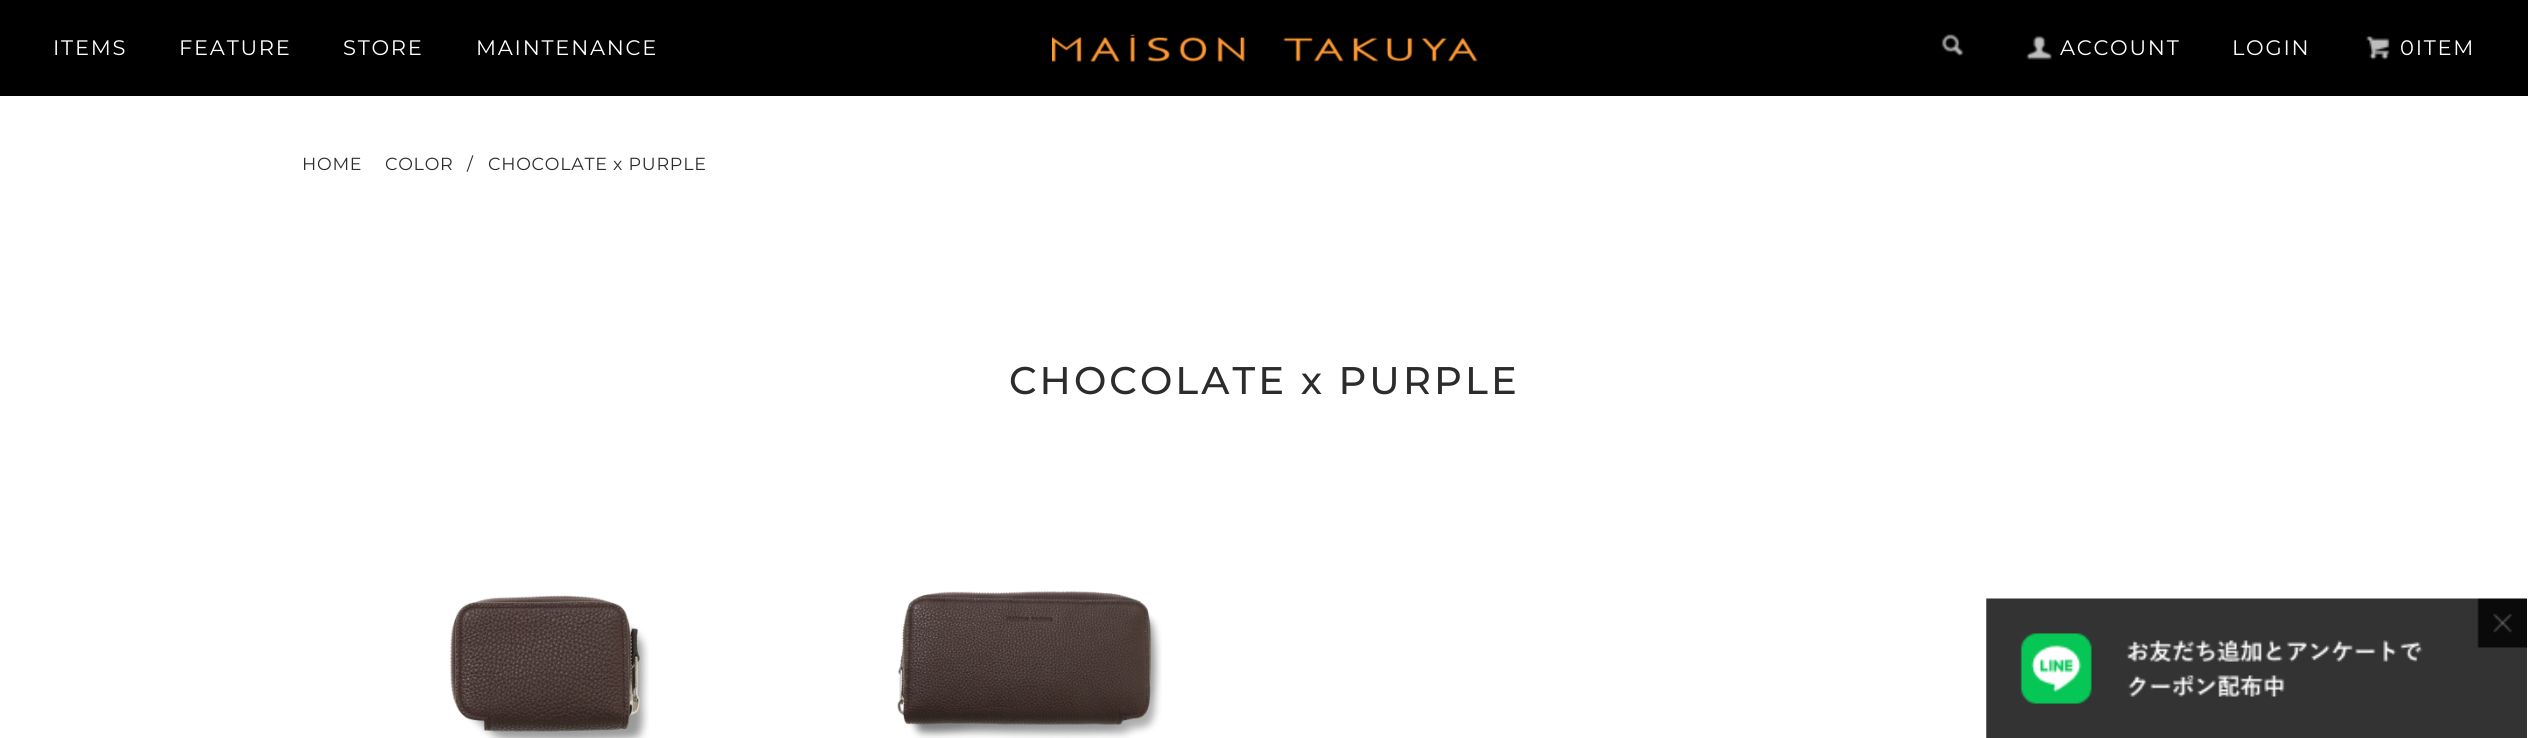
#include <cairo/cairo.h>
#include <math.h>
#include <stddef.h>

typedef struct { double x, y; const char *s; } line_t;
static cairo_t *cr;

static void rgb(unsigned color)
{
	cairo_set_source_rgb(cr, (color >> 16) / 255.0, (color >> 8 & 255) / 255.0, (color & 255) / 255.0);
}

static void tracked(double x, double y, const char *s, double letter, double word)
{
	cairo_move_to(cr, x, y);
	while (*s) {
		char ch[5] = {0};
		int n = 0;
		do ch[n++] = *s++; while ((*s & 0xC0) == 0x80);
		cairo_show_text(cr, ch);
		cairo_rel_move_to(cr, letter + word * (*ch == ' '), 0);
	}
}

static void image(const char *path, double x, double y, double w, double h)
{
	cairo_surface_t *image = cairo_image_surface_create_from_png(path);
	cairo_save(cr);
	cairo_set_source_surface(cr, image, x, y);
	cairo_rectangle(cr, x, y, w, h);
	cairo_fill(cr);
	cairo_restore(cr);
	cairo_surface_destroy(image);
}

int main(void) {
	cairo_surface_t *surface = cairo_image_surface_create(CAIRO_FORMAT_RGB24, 2528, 738);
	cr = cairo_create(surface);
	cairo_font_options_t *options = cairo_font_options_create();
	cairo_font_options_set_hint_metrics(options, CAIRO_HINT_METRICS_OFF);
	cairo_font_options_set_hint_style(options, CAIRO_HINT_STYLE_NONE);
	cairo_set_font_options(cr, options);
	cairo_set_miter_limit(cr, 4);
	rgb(0xffffff);
	cairo_paint(cr);
	rgb(0x000000);
	cairo_rectangle(cr, 0, 0, 2528, 96);
	cairo_fill(cr);
	image("img/1.png", 1052, 34, 426, 28);
	image("img/2.png", 1941, 34, 23, 23);
	image("img/3.png", 2026, 35, 26, 25);
	image("img/4.png", 2365, 36, 25, 24);
	image("img/5.png", 449, 595, 200, 143);
	image("img/6.png", 897, 591, 265, 147);
	image("img/7.png", 1986, 598, 541, 140);
	cairo_select_font_face(cr, "Montserrat", CAIRO_FONT_SLANT_NORMAL, CAIRO_FONT_WEIGHT_NORMAL);
	cairo_set_font_size(cr, 21);
	rgb(0xffffff);
	{
		static const line_t items[] = {
			{53, 55, "ITEMS"},
			{179, 55, "FEATURE"},
			{343, 55, "STORE"},
			{476, 55, "MAINTENANCE"},
			{2060, 55, "ACCOUNT"},
			{2232, 55, "LOGIN"},
			{2400, 55, "0ITEM"},
		};
		for (size_t i = 0; i < sizeof items / sizeof *items; i++) {
			tracked(items[i].x, items[i].y, items[i].s, 1.75, 0);
		}
	}
	cairo_set_font_size(cr, 17.5);
	rgb(0x2c2c2c);
	{
		static const line_t items[] = {
			{302, 170, "HOME"},
			{385, 170, "COLOR"},
			{467, 170, "/"},
			{488, 170, "CHOCOLATE x PURPLE"},
		};
		for (size_t i = 0; i < sizeof items / sizeof *items; i++) {
			tracked(items[i].x, items[i].y, items[i].s, 0.75, 0);
		}
	}
	cairo_select_font_face(cr, "Montserrat Medium", CAIRO_FONT_SLANT_NORMAL, CAIRO_FONT_WEIGHT_NORMAL);
	cairo_set_font_size(cr, 38.5);
	tracked(1009, 394, "CHOCOLATE x PURPLE", 3.1, 0);
	cairo_surface_write_to_png(surface, "page.png");
	cairo_font_options_destroy(options);
	cairo_destroy(cr);
	cairo_surface_destroy(surface);
	return 0;
}
